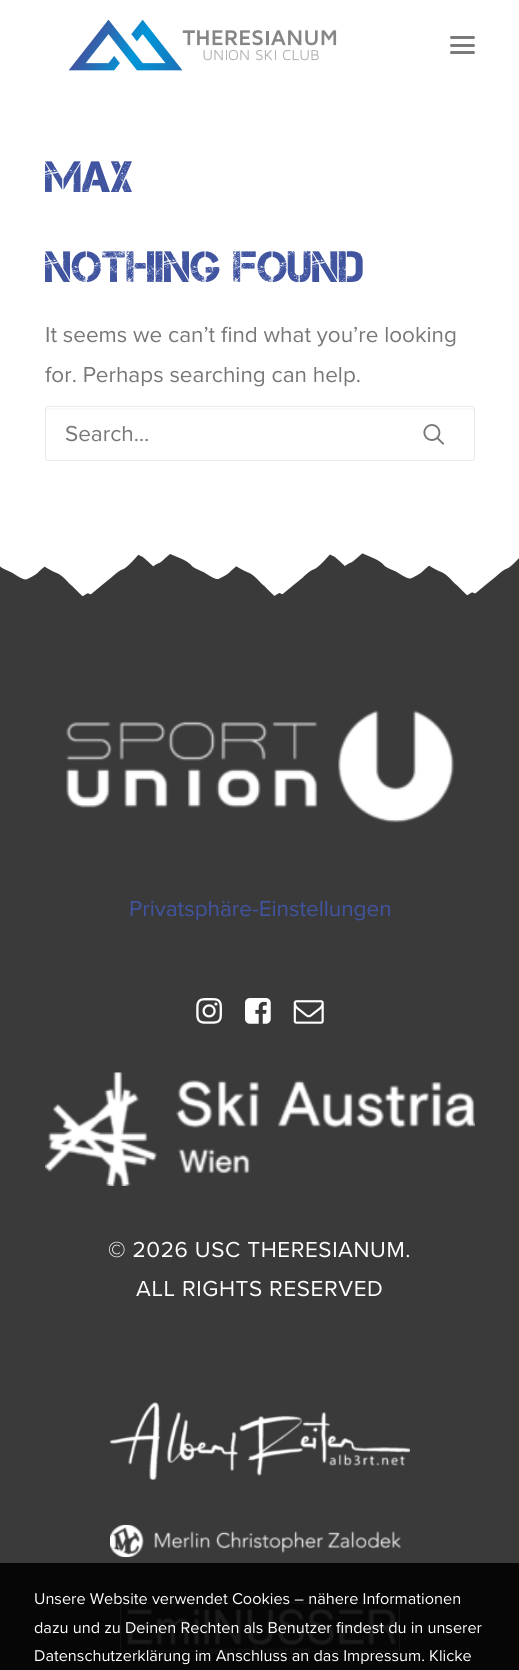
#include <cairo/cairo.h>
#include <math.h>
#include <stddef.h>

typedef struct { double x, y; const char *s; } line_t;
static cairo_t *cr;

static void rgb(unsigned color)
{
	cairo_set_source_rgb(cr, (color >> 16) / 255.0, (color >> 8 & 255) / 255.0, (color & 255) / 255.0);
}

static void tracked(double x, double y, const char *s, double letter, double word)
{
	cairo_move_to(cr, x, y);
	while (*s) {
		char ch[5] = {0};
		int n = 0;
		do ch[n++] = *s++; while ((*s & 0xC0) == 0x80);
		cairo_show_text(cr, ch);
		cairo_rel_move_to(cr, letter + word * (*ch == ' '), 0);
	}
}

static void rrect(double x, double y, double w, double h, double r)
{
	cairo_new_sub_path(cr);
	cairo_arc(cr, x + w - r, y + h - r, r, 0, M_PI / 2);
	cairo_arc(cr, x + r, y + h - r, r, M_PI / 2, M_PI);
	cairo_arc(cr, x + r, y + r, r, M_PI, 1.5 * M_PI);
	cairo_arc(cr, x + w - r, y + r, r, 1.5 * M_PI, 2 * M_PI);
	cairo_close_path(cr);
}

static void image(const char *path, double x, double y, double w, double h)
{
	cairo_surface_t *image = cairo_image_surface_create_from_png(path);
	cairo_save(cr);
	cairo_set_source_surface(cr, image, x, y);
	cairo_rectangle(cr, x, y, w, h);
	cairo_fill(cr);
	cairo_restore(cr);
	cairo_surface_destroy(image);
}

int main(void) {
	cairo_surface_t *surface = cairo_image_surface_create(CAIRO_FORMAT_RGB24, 519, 1670);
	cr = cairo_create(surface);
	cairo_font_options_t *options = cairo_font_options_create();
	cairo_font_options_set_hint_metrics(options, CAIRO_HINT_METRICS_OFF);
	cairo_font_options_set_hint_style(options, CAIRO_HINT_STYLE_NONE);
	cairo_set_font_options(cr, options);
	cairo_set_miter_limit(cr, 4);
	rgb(0xffffff);
	cairo_paint(cr);
	image("img/1.png", 68, 19, 269, 52);
	rgb(0x7a7a7a);
	rrect(450, 44, 25, 3, 1.5);
	cairo_fill(cr);
	rrect(450, 36, 25, 3, 1.5);
	cairo_fill(cr);
	rrect(450, 51, 25, 3, 1.5);
	cairo_fill(cr);
	rgb(0xf9f9f9);
	cairo_new_path(cr);
	cairo_move_to(cr, 48, 410);
	cairo_line_to(cr, 472, 410);
	cairo_line_to(cr, 474, 411);
	cairo_line_to(cr, 474, 409);
	cairo_curve_to(cr, 474, 408, 474, 408, 473, 408);
	cairo_line_to(cr, 47, 408);
	cairo_curve_to(cr, 46, 408, 46, 408, 46, 409);
	cairo_line_to(cr, 46, 411);
	cairo_close_path(cr);
	cairo_fill(cr);
	rrect(45.5, 406.5, 429, 54, 2);
	rgb(0xeaeaea);
	cairo_set_line_width(cr, 1);
	cairo_stroke(cr);
	image("img/2.png", 423, 424, 21, 21);
	rgb(0x3a3a3a);
	cairo_rectangle(cr, 0, 553, 519, 1010);
	cairo_fill(cr);
	rgb(0x060606);
	cairo_rectangle(cr, 0, 1563, 519, 107);
	cairo_fill(cr);
	image("img/3.png", 0, 551, 519, 45);
	image("img/4.png", 66, 710, 388, 113);
	image("img/5.png", 196, 998, 26, 26);
	image("img/6.png", 245, 998, 26, 26);
	image("img/7.png", 293, 1000, 31, 24);
	image("img/8.png", 45, 1072, 430, 114);
	image("img/9.png", 110, 1402, 300, 78);
	image("img/10.png", 110, 1524, 291, 34);
	image("img/11.png", 120, 1602, 280, 54);
	cairo_select_font_face(cr, "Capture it", CAIRO_FONT_SLANT_NORMAL, CAIRO_FONT_WEIGHT_NORMAL);
	cairo_set_font_size(cr, 43.75);
	rgb(0x4054a0);
	cairo_move_to(cr, 45, 192);
	cairo_show_text(cr, "Max");
	cairo_move_to(cr, 45, 282);
	cairo_show_text(cr, "Nothing Found");
	cairo_select_font_face(cr, "Proxima Nova", CAIRO_FONT_SLANT_NORMAL, CAIRO_FONT_WEIGHT_NORMAL);
	cairo_set_font_size(cr, 22.5);
	rgb(0x777777);
	{
		static const line_t items[] = {
			{45, 342, "It seems we can’t find what you’re looking"},
			{45, 382, "for. Perhaps searching can help."},
			{65, 441, "Search…"},
		};
		for (size_t i = 0; i < sizeof items / sizeof *items; i++) {
			cairo_move_to(cr, items[i].x, items[i].y);
			cairo_show_text(cr, items[i].s);
		}
	}
	rgb(0x4054a0);
	cairo_move_to(cr, 129, 916);
	cairo_show_text(cr, "Privatsphäre-Einstellungen");
	rgb(0xffffff);
	tracked(108, 1257, "© 2026 USC THERESIANUM.", 0.6, 0);
	tracked(136, 1296, "ALL RIGHTS RESERVED", 0.6, 0);
	cairo_set_font_size(cr, 16.25);
	{
		static const line_t items[] = {
			{34, 1604, "Unsere Website verwendet Cookies – nähere Informationen"},
			{34, 1633, "dazu und zu Deinen Rechten als Benutzer findest du in unserer"},
			{34, 1661, "Datenschutzerklärung im Anschluss an das Impressum. Klicke"},
		};
		for (size_t i = 0; i < sizeof items / sizeof *items; i++) {
			cairo_move_to(cr, items[i].x, items[i].y);
			cairo_show_text(cr, items[i].s);
		}
	}
	cairo_surface_write_to_png(surface, "page.png");
	cairo_font_options_destroy(options);
	cairo_destroy(cr);
	cairo_surface_destroy(surface);
	return 0;
}
